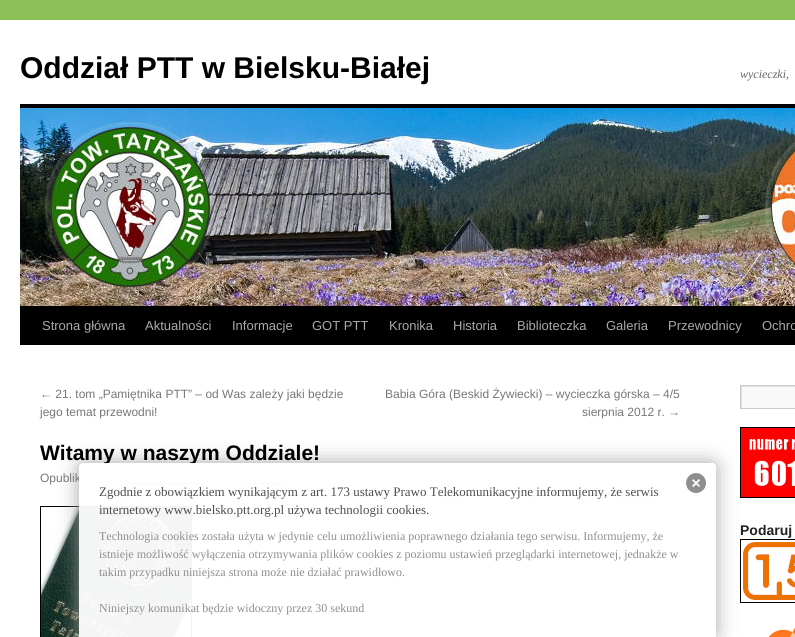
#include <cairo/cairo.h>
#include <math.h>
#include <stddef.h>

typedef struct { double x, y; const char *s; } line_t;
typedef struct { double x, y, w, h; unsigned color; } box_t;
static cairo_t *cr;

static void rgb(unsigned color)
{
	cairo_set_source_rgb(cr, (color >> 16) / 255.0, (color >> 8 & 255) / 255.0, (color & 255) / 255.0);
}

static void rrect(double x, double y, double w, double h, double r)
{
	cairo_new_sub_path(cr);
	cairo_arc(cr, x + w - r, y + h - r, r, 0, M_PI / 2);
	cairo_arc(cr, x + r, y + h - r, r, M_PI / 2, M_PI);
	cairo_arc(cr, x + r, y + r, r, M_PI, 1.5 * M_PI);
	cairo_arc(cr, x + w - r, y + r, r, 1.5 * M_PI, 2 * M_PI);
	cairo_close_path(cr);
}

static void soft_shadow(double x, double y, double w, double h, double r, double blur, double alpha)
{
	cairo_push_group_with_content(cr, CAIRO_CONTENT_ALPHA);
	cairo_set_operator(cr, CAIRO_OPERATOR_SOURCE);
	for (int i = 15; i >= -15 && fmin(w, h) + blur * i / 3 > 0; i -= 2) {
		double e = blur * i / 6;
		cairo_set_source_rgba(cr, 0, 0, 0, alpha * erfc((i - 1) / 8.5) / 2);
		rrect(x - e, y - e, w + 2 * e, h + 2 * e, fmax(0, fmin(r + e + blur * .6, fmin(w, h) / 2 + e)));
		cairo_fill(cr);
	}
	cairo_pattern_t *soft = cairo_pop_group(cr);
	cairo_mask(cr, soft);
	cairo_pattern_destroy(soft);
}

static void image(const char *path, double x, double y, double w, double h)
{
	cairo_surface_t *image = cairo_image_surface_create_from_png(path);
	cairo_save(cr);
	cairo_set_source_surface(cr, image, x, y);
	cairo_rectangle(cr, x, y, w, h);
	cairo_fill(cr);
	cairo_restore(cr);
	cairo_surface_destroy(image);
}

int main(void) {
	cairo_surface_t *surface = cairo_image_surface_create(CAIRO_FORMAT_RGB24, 795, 637);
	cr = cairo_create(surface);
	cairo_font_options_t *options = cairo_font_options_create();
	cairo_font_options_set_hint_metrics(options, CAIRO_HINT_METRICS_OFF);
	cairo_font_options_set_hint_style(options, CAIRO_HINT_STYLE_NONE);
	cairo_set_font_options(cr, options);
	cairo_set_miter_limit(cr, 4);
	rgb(0x8cbf55);
	cairo_paint(cr);
	{
		static const box_t items[] = {
			{0, 20, 795, 617, 0xffffff},
			{20, 104, 775, 4, 0x000000},
			{20, 306, 775, 39, 0x000000},
		};
		for (size_t i = 0; i < sizeof items / sizeof *items; i++) {
			rgb(items[i].color);
			cairo_rectangle(cr, items[i].x, items[i].y, items[i].w, items[i].h);
			cairo_fill(cr);
		}
	}
	image("img/1.png", 20, 108, 775, 198);
	rgb(0x777777);
	cairo_rectangle(cr, 119, 483, 82, 1);
	cairo_fill(cr);
	cairo_rectangle(cr, 242, 483, 43, 1);
	cairo_fill(cr);
	cairo_rectangle(cr, 40.5, 506.5, 151, 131);
	rgb(0x000000);
	cairo_set_line_width(cr, 1);
	cairo_stroke(cr);
	image("img/2.png", 41, 507, 150, 130);
	rgb(0xf9f9f9);
	cairo_rectangle(cr, 742, 387, 53, 21);
	cairo_fill(cr);
	cairo_save(cr);
	cairo_rectangle(cr, 741, 386, 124, 22);
	cairo_clip(cr);
	rgb(0xe0e0e0);
	cairo_set_fill_rule(cr, CAIRO_FILL_RULE_EVEN_ODD);
	cairo_new_path(cr);
	cairo_move_to(cr, 642, 287);
	cairo_line_to(cr, 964, 287);
	cairo_line_to(cr, 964, 507);
	cairo_line_to(cr, 642, 507);
	cairo_close_path(cr);
	cairo_move_to(cr, 742, 387);
	cairo_line_to(cr, 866, 387);
	cairo_line_to(cr, 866, 409);
	cairo_line_to(cr, 742, 409);
	cairo_close_path(cr);
	cairo_fill(cr);
	cairo_restore(cr);
	cairo_rectangle(cr, 740.5, 385.5, 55, 23);
	rgb(0xcccccc);
	cairo_stroke(cr);
	cairo_rectangle(cr, 740.5, 427.5, 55, 70);
	rgb(0x000000);
	cairo_stroke(cr);
	image("img/3.png", 741, 428, 54, 69);
	image("img/4.png", 740, 539, 55, 64);
	image("img/5.png", 768, 627, 27, 10);
	cairo_save(cr);
	cairo_set_fill_rule(cr, CAIRO_FILL_RULE_EVEN_ODD);
	cairo_new_path(cr);
	cairo_move_to(cr, 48, 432);
	cairo_line_to(cr, 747, 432);
	cairo_line_to(cr, 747, 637);
	cairo_line_to(cr, 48, 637);
	cairo_close_path(cr);
	cairo_move_to(cr, 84, 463);
	cairo_line_to(cr, 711, 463);
	cairo_curve_to(cr, 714, 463, 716, 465, 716, 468);
	cairo_line_to(cr, 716, 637);
	cairo_line_to(cr, 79, 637);
	cairo_line_to(cr, 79, 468);
	cairo_curve_to(cr, 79, 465, 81, 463, 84, 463);
	cairo_close_path(cr);
	cairo_clip(cr);
	rgb(0xa1a1a1);
	soft_shadow(79, 463, 637, 174, 5, 10, 0.95);
	cairo_restore(cr);
	cairo_select_font_face(cr, "Liberation Sans", CAIRO_FONT_SLANT_NORMAL, CAIRO_FONT_WEIGHT_BOLD);
	cairo_set_font_size(cr, 30);
	cairo_move_to(cr, 20, 78);
	cairo_show_text(cr, "Oddział PTT w Bielsku-Białej");
	cairo_select_font_face(cr, "Liberation Serif", CAIRO_FONT_SLANT_ITALIC, CAIRO_FONT_WEIGHT_NORMAL);
	cairo_set_font_size(cr, 12);
	rgb(0x666666);
	cairo_move_to(cr, 740, 78);
	cairo_show_text(cr, "wycieczki,");
	cairo_select_font_face(cr, "Liberation Sans", CAIRO_FONT_SLANT_NORMAL, CAIRO_FONT_WEIGHT_NORMAL);
	cairo_set_font_size(cr, 13);
	rgb(0xaaaaaa);
	{
		static const line_t items[] = {
			{42, 330, "Strona główna"},
			{145, 330, "Aktualności"},
			{232, 330, "Informacje"},
			{312, 330, "GOT PTT"},
			{389, 330, "Kronika"},
			{453, 330, "Historia"},
			{517, 330, "Biblioteczka"},
			{606, 330, "Galeria"},
			{668, 330, "Przewodnicy"},
			{762, 330, "Ochro"},
		};
		for (size_t i = 0; i < sizeof items / sizeof *items; i++) {
			cairo_move_to(cr, items[i].x, items[i].y);
			cairo_show_text(cr, items[i].s);
		}
	}
	cairo_set_font_size(cr, 12);
	rgb(0x777777);
	{
		static const line_t items[] = {
			{40, 398, "← 21. tom „Pamiętnika PTT” – od Was zależy jaki będzie"},
			{40, 416, "jego temat przewodni!"},
			{385, 398, "Babia Góra (Beskid Żywiecki) – wycieczka górska – 4/5"},
			{582, 416, "sierpnia 2012 r. →"},
		};
		for (size_t i = 0; i < sizeof items / sizeof *items; i++) {
			cairo_move_to(cr, items[i].x, items[i].y);
			cairo_show_text(cr, items[i].s);
		}
	}
	cairo_select_font_face(cr, "Liberation Sans", CAIRO_FONT_SLANT_NORMAL, CAIRO_FONT_WEIGHT_BOLD);
	cairo_set_font_size(cr, 21);
	rgb(0x000000);
	cairo_move_to(cr, 40, 460);
	cairo_show_text(cr, "Witamy w naszym Oddziale!");
	cairo_select_font_face(cr, "Liberation Sans", CAIRO_FONT_SLANT_NORMAL, CAIRO_FONT_WEIGHT_NORMAL);
	cairo_set_font_size(cr, 12);
	rgb(0x777777);
	cairo_move_to(cr, 40, 482);
	cairo_show_text(cr, "Opublik");
	cairo_select_font_face(cr, "Liberation Sans", CAIRO_FONT_SLANT_NORMAL, CAIRO_FONT_WEIGHT_BOLD);
	cairo_set_font_size(cr, 14);
	rgb(0x222222);
	cairo_move_to(cr, 740, 535);
	cairo_show_text(cr, "Podaruj");
	cairo_set_source_rgba(cr, 1, 1, 1, 0.95);
	cairo_new_path(cr);
	cairo_move_to(cr, 84, 463);
	cairo_line_to(cr, 711, 463);
	cairo_curve_to(cr, 714, 463, 716, 465, 716, 468);
	cairo_line_to(cr, 716, 637);
	cairo_line_to(cr, 79, 637);
	cairo_line_to(cr, 79, 468);
	cairo_curve_to(cr, 79, 465, 81, 463, 84, 463);
	cairo_close_path(cr);
	cairo_fill(cr);
	image("img/6.png", 686, 473, 20, 20);
	cairo_select_font_face(cr, "Liberation Serif", CAIRO_FONT_SLANT_NORMAL, CAIRO_FONT_WEIGHT_NORMAL);
	cairo_set_font_size(cr, 13);
	rgb(0x4d4d4d);
	cairo_move_to(cr, 99, 496);
	cairo_show_text(cr, "Zgodnie z obowiązkiem wynikającym z art. 173 ustawy Prawo Telekomunikacyjne informujemy, że serwis");
	cairo_move_to(cr, 99, 514);
	cairo_show_text(cr, "internetowy www.bielsko.ptt.org.pl używa technologii cookies.");
	cairo_set_font_size(cr, 12);
	rgb(0x8e8e8e);
	{
		static const line_t items[] = {
			{99, 540, "Technologia cookies została użyta w jedynie celu umożliwienia poprawnego działania tego serwisu. Informujemy, że"},
			{99, 558, "istnieje możliwość wyłączenia otrzymywania plików cookies z poziomu ustawień przeglądarki internetowej, jednakże w"},
			{99, 576, "takim przypadku niniejsza strona może nie działać prawidłowo."},
			{99, 612, "Niniejszy komunikat będzie widoczny przez 30 sekund"},
		};
		for (size_t i = 0; i < sizeof items / sizeof *items; i++) {
			cairo_move_to(cr, items[i].x, items[i].y);
			cairo_show_text(cr, items[i].s);
		}
	}
	cairo_surface_write_to_png(surface, "page.png");
	cairo_font_options_destroy(options);
	cairo_destroy(cr);
	cairo_surface_destroy(surface);
	return 0;
}
